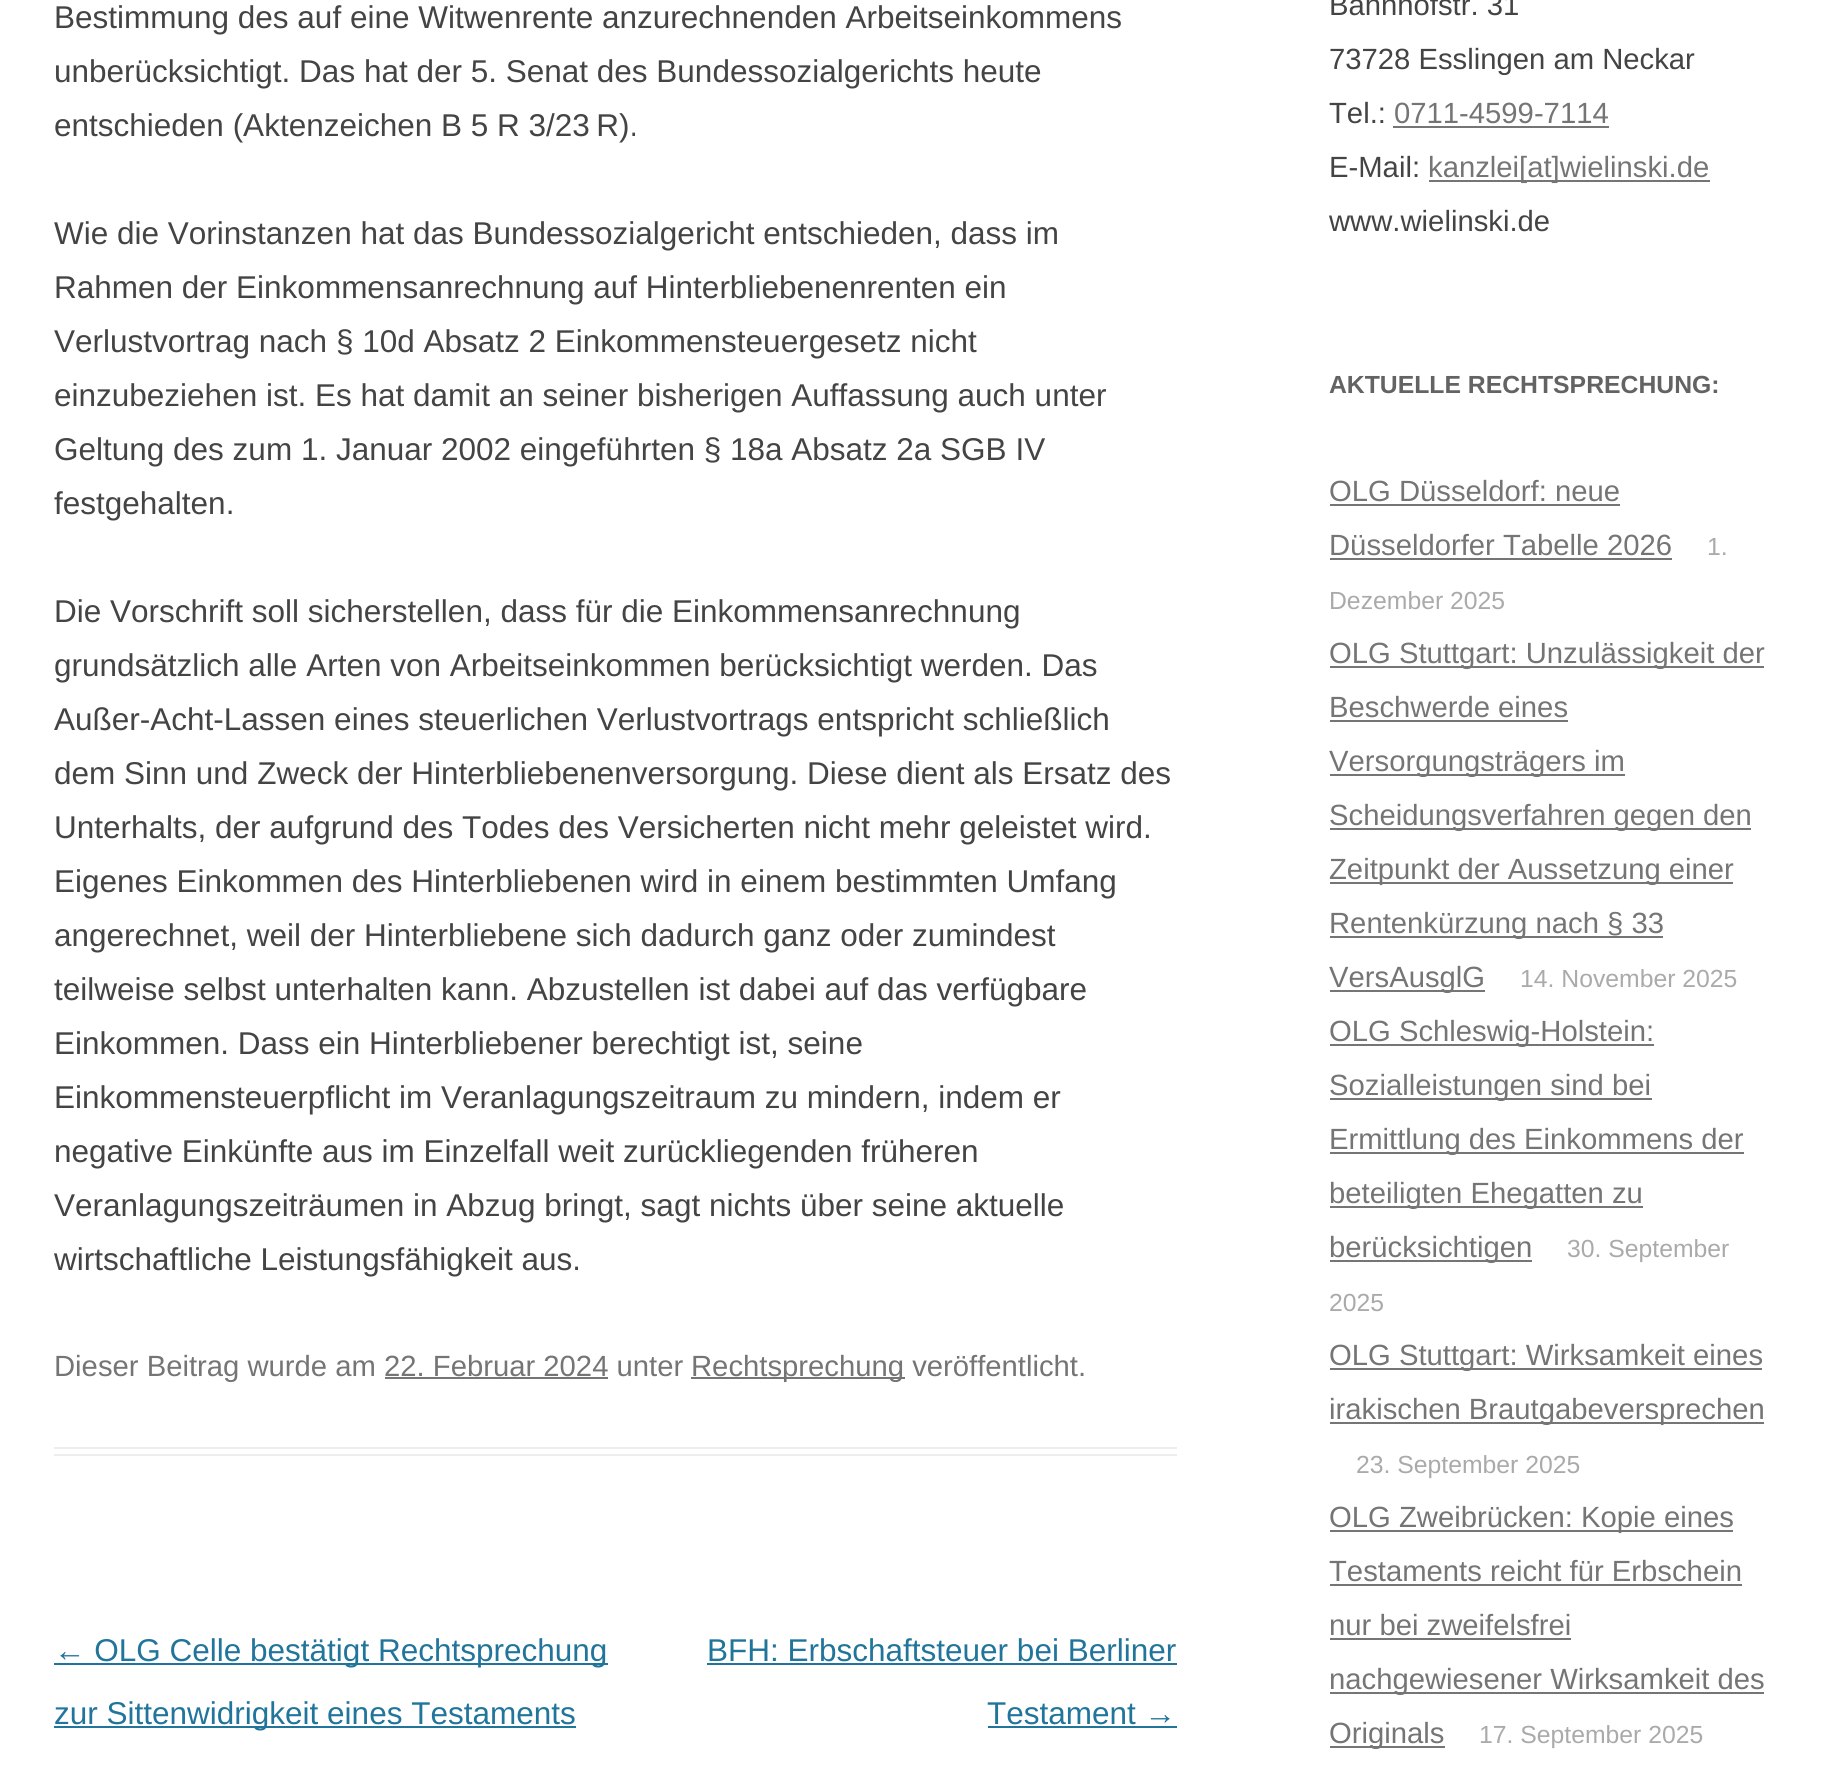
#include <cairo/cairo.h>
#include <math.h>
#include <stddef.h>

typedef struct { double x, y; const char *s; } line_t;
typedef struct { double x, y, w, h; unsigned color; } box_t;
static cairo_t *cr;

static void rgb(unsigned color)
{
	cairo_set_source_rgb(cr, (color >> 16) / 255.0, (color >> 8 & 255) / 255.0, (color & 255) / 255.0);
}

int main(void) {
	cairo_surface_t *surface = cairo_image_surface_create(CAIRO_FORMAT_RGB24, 1831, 1768);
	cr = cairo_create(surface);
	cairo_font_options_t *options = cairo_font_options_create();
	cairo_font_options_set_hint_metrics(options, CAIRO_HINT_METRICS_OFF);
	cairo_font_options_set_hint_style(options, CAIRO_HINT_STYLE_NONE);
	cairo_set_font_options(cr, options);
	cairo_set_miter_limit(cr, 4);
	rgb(0xffffff);
	cairo_paint(cr);
	{
		static const box_t items[] = {
			{54, 1447, 1123, 2, 0xededed},
			{54, 1454, 1123, 2, 0xededed},
			{691, 1377, 214, 2, 0x757575},
			{385, 1377, 223, 2, 0x757575},
			{54, 1663, 554, 2, 0x21759b},
			{54, 1726, 522, 2, 0x21759b},
			{707, 1663, 470, 2, 0x21759b},
			{988, 1726, 189, 2, 0x21759b},
			{1393, 126, 216, 2, 0x757575},
			{1429, 180, 281, 2, 0x757575},
			{1330, 504, 290, 2, 0x757575},
			{1330, 558, 342, 2, 0x757575},
			{1330, 666, 434, 2, 0x757575},
			{1330, 720, 238, 2, 0x757575},
			{1330, 774, 295, 2, 0x757575},
			{1330, 828, 421, 2, 0x757575},
			{1330, 882, 403, 2, 0x757575},
			{1330, 936, 333, 2, 0x757575},
			{1330, 990, 155, 2, 0x757575},
			{1330, 1044, 324, 2, 0x757575},
			{1330, 1098, 322, 2, 0x757575},
			{1330, 1152, 414, 2, 0x757575},
			{1330, 1206, 313, 2, 0x757575},
			{1330, 1260, 202, 2, 0x757575},
			{1330, 1368, 432, 2, 0x757575},
			{1330, 1422, 434, 2, 0x757575},
			{1330, 1530, 403, 2, 0x757575},
			{1330, 1584, 412, 2, 0x757575},
			{1330, 1638, 241, 2, 0x757575},
			{1330, 1692, 434, 2, 0x757575},
			{1330, 1746, 115, 2, 0x757575},
		};
		for (size_t i = 0; i < sizeof items / sizeof *items; i++) {
			rgb(items[i].color);
			cairo_rectangle(cr, items[i].x, items[i].y, items[i].w, items[i].h);
			cairo_fill(cr);
		}
	}
	cairo_select_font_face(cr, "Liberation Sans", CAIRO_FONT_SLANT_NORMAL, CAIRO_FONT_WEIGHT_NORMAL);
	cairo_set_font_size(cr, 31.5);
	rgb(0x444444);
	{
		static const line_t items[] = {
			{54, 28, "Bestimmung des auf eine Witwenrente anzurechnenden Arbeitseinkommens"},
			{54, 82, "unberücksichtigt. Das hat der 5. Senat des Bundessozialgerichts heute"},
			{54, 136, "entschieden (Aktenzeichen B 5 R 3/23 R)."},
			{54, 244, "Wie die Vorinstanzen hat das Bundessozialgericht entschieden, dass im"},
			{54, 298, "Rahmen der Einkommensanrechnung auf Hinterbliebenenrenten ein"},
			{54, 352, "Verlustvortrag nach § 10d Absatz 2 Einkommensteuergesetz nicht"},
			{54, 406, "einzubeziehen ist. Es hat damit an seiner bisherigen Auffassung auch unter"},
			{54, 460, "Geltung des zum 1. Januar 2002 eingeführten § 18a Absatz 2a SGB IV"},
			{54, 514, "festgehalten."},
			{54, 622, "Die Vorschrift soll sicherstellen, dass für die Einkommensanrechnung"},
			{54, 676, "grundsätzlich alle Arten von Arbeitseinkommen berücksichtigt werden. Das"},
			{54, 730, "Außer-Acht-Lassen eines steuerlichen Verlustvortrags entspricht schließlich"},
			{54, 784, "dem Sinn und Zweck der Hinterbliebenenversorgung. Diese dient als Ersatz des"},
			{54, 838, "Unterhalts, der aufgrund des Todes des Versicherten nicht mehr geleistet wird."},
			{54, 892, "Eigenes Einkommen des Hinterbliebenen wird in einem bestimmten Umfang"},
			{54, 946, "angerechnet, weil der Hinterbliebene sich dadurch ganz oder zumindest"},
			{54, 1000, "teilweise selbst unterhalten kann. Abzustellen ist dabei auf das verfügbare"},
			{54, 1054, "Einkommen. Dass ein Hinterbliebener berechtigt ist, seine"},
			{54, 1108, "Einkommensteuerpflicht im Veranlagungszeitraum zu mindern, indem er"},
			{54, 1162, "negative Einkünfte aus im Einzelfall weit zurückliegenden früheren"},
			{54, 1216, "Veranlagungszeiträumen in Abzug bringt, sagt nichts über seine aktuelle"},
			{54, 1270, "wirtschaftliche Leistungsfähigkeit aus."},
		};
		for (size_t i = 0; i < sizeof items / sizeof *items; i++) {
			cairo_move_to(cr, items[i].x, items[i].y);
			cairo_show_text(cr, items[i].s);
		}
	}
	cairo_set_font_size(cr, 29.25);
	rgb(0x757575);
	cairo_move_to(cr, 54, 1376);
	cairo_show_text(cr, "Dieser Beitrag wurde am 22. Februar 2024 unter");
	cairo_move_to(cr, 691, 1376);
	cairo_show_text(cr, "Rechtsprechung veröffentlicht.");
	cairo_set_font_size(cr, 31.5);
	rgb(0x21759b);
	{
		static const line_t items[] = {
			{54, 1661, "← OLG Celle bestätigt Rechtsprechung"},
			{54, 1724, "zur Sittenwidrigkeit eines Testaments"},
			{707, 1661, "BFH: Erbschaftsteuer bei Berliner"},
			{987, 1724, "Testament →"},
		};
		for (size_t i = 0; i < sizeof items / sizeof *items; i++) {
			cairo_move_to(cr, items[i].x, items[i].y);
			cairo_show_text(cr, items[i].s);
		}
	}
	cairo_set_font_size(cr, 29.25);
	rgb(0x444444);
	{
		static const line_t items[] = {
			{1329, 15, "Bahnhofstr. 31"},
			{1329, 69, "73728 Esslingen am Neckar"},
			{1329, 123, "Tel.:"},
		};
		for (size_t i = 0; i < sizeof items / sizeof *items; i++) {
			cairo_move_to(cr, items[i].x, items[i].y);
			cairo_show_text(cr, items[i].s);
		}
	}
	rgb(0x757575);
	cairo_move_to(cr, 1394, 123);
	cairo_show_text(cr, "0711-4599-7114");
	rgb(0x444444);
	cairo_move_to(cr, 1329, 177);
	cairo_show_text(cr, "E-Mail:");
	rgb(0x757575);
	cairo_move_to(cr, 1428, 177);
	cairo_show_text(cr, "kanzlei[at]wielinski.de");
	rgb(0x444444);
	cairo_move_to(cr, 1329, 231);
	cairo_show_text(cr, "www.wielinski.de");
	cairo_select_font_face(cr, "Liberation Sans", CAIRO_FONT_SLANT_NORMAL, CAIRO_FONT_WEIGHT_BOLD);
	cairo_set_font_size(cr, 24.75);
	rgb(0x636363);
	cairo_move_to(cr, 1329, 393);
	cairo_show_text(cr, "AKTUELLE RECHTSPRECHUNG:");
	cairo_select_font_face(cr, "Liberation Sans", CAIRO_FONT_SLANT_NORMAL, CAIRO_FONT_WEIGHT_NORMAL);
	cairo_set_font_size(cr, 29.25);
	rgb(0x757575);
	cairo_move_to(cr, 1329, 501);
	cairo_show_text(cr, "OLG Düsseldorf: neue");
	cairo_move_to(cr, 1329, 555);
	cairo_show_text(cr, "Düsseldorfer Tabelle 2026");
	cairo_set_font_size(cr, 24.75);
	rgb(0xaaaaaa);
	cairo_move_to(cr, 1707, 555);
	cairo_show_text(cr, "1.");
	cairo_move_to(cr, 1329, 609);
	cairo_show_text(cr, "Dezember 2025");
	cairo_set_font_size(cr, 29.25);
	rgb(0x757575);
	{
		static const line_t items[] = {
			{1329, 663, "OLG Stuttgart: Unzulässigkeit der"},
			{1329, 717, "Beschwerde eines"},
			{1329, 771, "Versorgungsträgers im"},
			{1329, 825, "Scheidungsverfahren gegen den"},
			{1329, 879, "Zeitpunkt der Aussetzung einer"},
			{1329, 933, "Rentenkürzung nach § 33"},
			{1329, 987, "VersAusglG"},
		};
		for (size_t i = 0; i < sizeof items / sizeof *items; i++) {
			cairo_move_to(cr, items[i].x, items[i].y);
			cairo_show_text(cr, items[i].s);
		}
	}
	cairo_set_font_size(cr, 24.75);
	rgb(0xaaaaaa);
	cairo_move_to(cr, 1520, 987);
	cairo_show_text(cr, "14. November 2025");
	cairo_set_font_size(cr, 29.25);
	rgb(0x757575);
	{
		static const line_t items[] = {
			{1329, 1041, "OLG Schleswig-Holstein:"},
			{1329, 1095, "Sozialleistungen sind bei"},
			{1329, 1149, "Ermittlung des Einkommens der"},
			{1329, 1203, "beteiligten Ehegatten zu"},
			{1329, 1257, "berücksichtigen"},
		};
		for (size_t i = 0; i < sizeof items / sizeof *items; i++) {
			cairo_move_to(cr, items[i].x, items[i].y);
			cairo_show_text(cr, items[i].s);
		}
	}
	cairo_set_font_size(cr, 24.75);
	rgb(0xaaaaaa);
	cairo_move_to(cr, 1567, 1257);
	cairo_show_text(cr, "30. September");
	cairo_move_to(cr, 1329, 1311);
	cairo_show_text(cr, "2025");
	cairo_set_font_size(cr, 29.25);
	rgb(0x757575);
	cairo_move_to(cr, 1329, 1365);
	cairo_show_text(cr, "OLG Stuttgart: Wirksamkeit eines");
	cairo_move_to(cr, 1329, 1419);
	cairo_show_text(cr, "irakischen Brautgabeversprechen");
	cairo_set_font_size(cr, 24.75);
	rgb(0xaaaaaa);
	cairo_move_to(cr, 1356, 1473);
	cairo_show_text(cr, "23. September 2025");
	cairo_set_font_size(cr, 29.25);
	rgb(0x757575);
	{
		static const line_t items[] = {
			{1329, 1527, "OLG Zweibrücken: Kopie eines"},
			{1329, 1581, "Testaments reicht für Erbschein"},
			{1329, 1635, "nur bei zweifelsfrei"},
			{1329, 1689, "nachgewiesener Wirksamkeit des"},
			{1329, 1743, "Originals"},
		};
		for (size_t i = 0; i < sizeof items / sizeof *items; i++) {
			cairo_move_to(cr, items[i].x, items[i].y);
			cairo_show_text(cr, items[i].s);
		}
	}
	cairo_set_font_size(cr, 24.75);
	rgb(0xaaaaaa);
	cairo_move_to(cr, 1479, 1743);
	cairo_show_text(cr, "17. September 2025");
	cairo_surface_write_to_png(surface, "page.png");
	cairo_font_options_destroy(options);
	cairo_destroy(cr);
	cairo_surface_destroy(surface);
	return 0;
}
